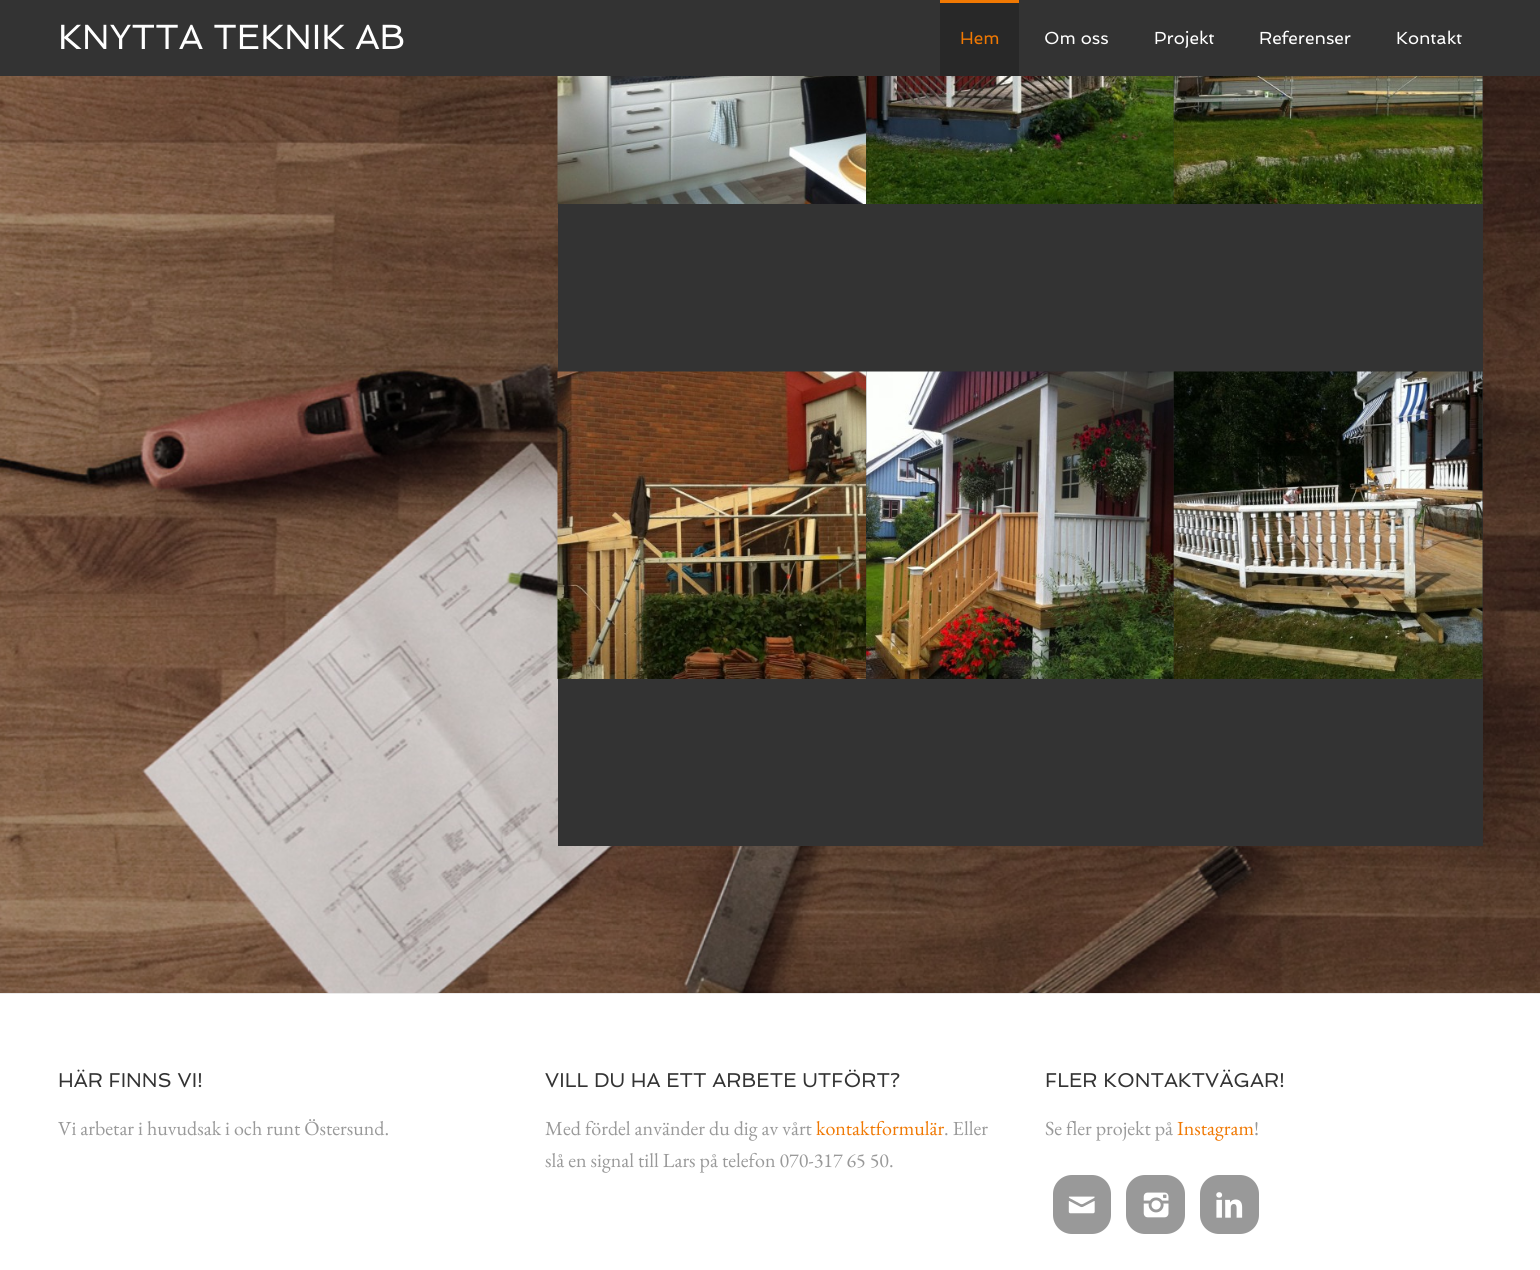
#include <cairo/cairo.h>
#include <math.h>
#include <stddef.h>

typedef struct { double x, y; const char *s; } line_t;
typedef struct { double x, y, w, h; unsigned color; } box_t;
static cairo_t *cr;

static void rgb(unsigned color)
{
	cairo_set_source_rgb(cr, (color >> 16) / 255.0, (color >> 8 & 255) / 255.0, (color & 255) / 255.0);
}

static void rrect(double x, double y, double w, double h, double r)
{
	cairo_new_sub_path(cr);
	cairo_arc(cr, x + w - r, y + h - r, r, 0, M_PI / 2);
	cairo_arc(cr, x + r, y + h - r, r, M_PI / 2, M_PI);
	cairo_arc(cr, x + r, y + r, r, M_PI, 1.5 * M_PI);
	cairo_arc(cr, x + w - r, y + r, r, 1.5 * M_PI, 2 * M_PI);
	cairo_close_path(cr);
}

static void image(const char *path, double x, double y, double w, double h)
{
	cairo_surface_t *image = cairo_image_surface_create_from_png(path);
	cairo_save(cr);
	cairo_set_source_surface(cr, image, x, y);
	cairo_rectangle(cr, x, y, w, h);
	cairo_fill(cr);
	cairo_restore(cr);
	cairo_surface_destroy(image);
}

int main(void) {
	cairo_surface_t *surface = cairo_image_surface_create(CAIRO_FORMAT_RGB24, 1540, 1270);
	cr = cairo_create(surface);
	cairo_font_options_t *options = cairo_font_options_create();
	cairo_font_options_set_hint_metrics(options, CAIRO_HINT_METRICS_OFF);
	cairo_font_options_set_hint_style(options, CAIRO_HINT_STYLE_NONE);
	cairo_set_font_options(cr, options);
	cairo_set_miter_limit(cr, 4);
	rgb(0xffffff);
	cairo_paint(cr);
	{
		static const box_t items[] = {
			{0, 0, 1540, 76, 0x333333},
			{940, 3, 79, 73, 0x282828},
			{940, 0, 79, 3, 0xf07802},
		};
		for (size_t i = 0; i < sizeof items / sizeof *items; i++) {
			rgb(items[i].color);
			cairo_rectangle(cr, items[i].x, items[i].y, items[i].w, items[i].h);
			cairo_fill(cr);
		}
	}
	image("img/1.png", 0, 76, 1540, 917);
	rgb(0x333333);
	cairo_rectangle(cr, 558, 76, 925, 770);
	cairo_fill(cr);
	image("img/2.png", 557, 76, 309, 128);
	image("img/3.png", 866, 76, 308, 128);
	image("img/4.png", 1173, 76, 310, 128);
	image("img/5.png", 557, 371, 309, 308);
	image("img/6.png", 866, 371, 308, 308);
	image("img/7.png", 1173, 371, 310, 308);
	rgb(0xececec);
	cairo_rectangle(cr, 0, 993, 1540, 1);
	cairo_fill(cr);
	rgb(0x999999);
	rrect(1053, 1175, 58, 59, 19);
	cairo_fill(cr);
	image("img/8.png", 1068, 1196, 27, 18);
	rrect(1126, 1175, 59, 59, 19);
	cairo_fill(cr);
	image("img/9.png", 1143, 1192, 26, 26);
	rrect(1200, 1175, 59, 59, 19);
	cairo_fill(cr);
	image("img/10.png", 1216, 1192, 27, 26);
	cairo_select_font_face(cr, "Spinnaker", CAIRO_FONT_SLANT_NORMAL, CAIRO_FONT_WEIGHT_NORMAL);
	cairo_set_font_size(cr, 35);
	rgb(0xffffff);
	cairo_move_to(cr, 58, 49);
	cairo_show_text(cr, "KNYTTA TEKNIK AB");
	cairo_set_font_size(cr, 17.5);
	rgb(0xf07802);
	cairo_move_to(cr, 960, 44);
	cairo_show_text(cr, "Hem");
	rgb(0xffffff);
	{
		static const line_t items[] = {
			{1044, 44, "Om oss"},
			{1154, 44, "Projekt"},
			{1259, 44, "Referenser"},
			{1396, 44, "Kontakt"},
		};
		for (size_t i = 0; i < sizeof items / sizeof *items; i++) {
			cairo_move_to(cr, items[i].x, items[i].y);
			cairo_show_text(cr, items[i].s);
		}
	}
	cairo_set_font_size(cr, 20);
	rgb(0x333333);
	cairo_move_to(cr, 58, 1087);
	cairo_show_text(cr, "HÄR FINNS VI!");
	cairo_select_font_face(cr, "EB Garamond", CAIRO_FONT_SLANT_NORMAL, CAIRO_FONT_WEIGHT_NORMAL);
	rgb(0x999999);
	cairo_move_to(cr, 58, 1135);
	cairo_show_text(cr, "Vi arbetar i huvudsak i och runt Östersund.");
	cairo_select_font_face(cr, "Spinnaker", CAIRO_FONT_SLANT_NORMAL, CAIRO_FONT_WEIGHT_NORMAL);
	rgb(0x333333);
	cairo_move_to(cr, 545, 1087);
	cairo_show_text(cr, "VILL DU HA ETT ARBETE UTFÖRT?");
	cairo_select_font_face(cr, "EB Garamond", CAIRO_FONT_SLANT_NORMAL, CAIRO_FONT_WEIGHT_NORMAL);
	rgb(0x999999);
	cairo_move_to(cr, 545, 1135);
	cairo_show_text(cr, "Med fördel använder du dig av vårt");
	rgb(0xf07802);
	cairo_move_to(cr, 816, 1135);
	cairo_show_text(cr, "kontaktformulär");
	rgb(0x999999);
	cairo_move_to(cr, 944, 1135);
	cairo_show_text(cr, ". Eller");
	cairo_move_to(cr, 545, 1167);
	cairo_show_text(cr, "slå en signal till Lars på telefon 070-317 65 50.");
	cairo_select_font_face(cr, "Spinnaker", CAIRO_FONT_SLANT_NORMAL, CAIRO_FONT_WEIGHT_NORMAL);
	rgb(0x333333);
	cairo_move_to(cr, 1045, 1087);
	cairo_show_text(cr, "FLER KONTAKTVÄGAR!");
	cairo_select_font_face(cr, "EB Garamond", CAIRO_FONT_SLANT_NORMAL, CAIRO_FONT_WEIGHT_NORMAL);
	rgb(0x999999);
	cairo_move_to(cr, 1045, 1135);
	cairo_show_text(cr, "Se fler projekt på");
	rgb(0xf07802);
	cairo_move_to(cr, 1177, 1135);
	cairo_show_text(cr, "Instagram");
	rgb(0x999999);
	cairo_move_to(cr, 1254, 1135);
	cairo_show_text(cr, "!");
	cairo_surface_write_to_png(surface, "page.png");
	cairo_font_options_destroy(options);
	cairo_destroy(cr);
	cairo_surface_destroy(surface);
	return 0;
}
